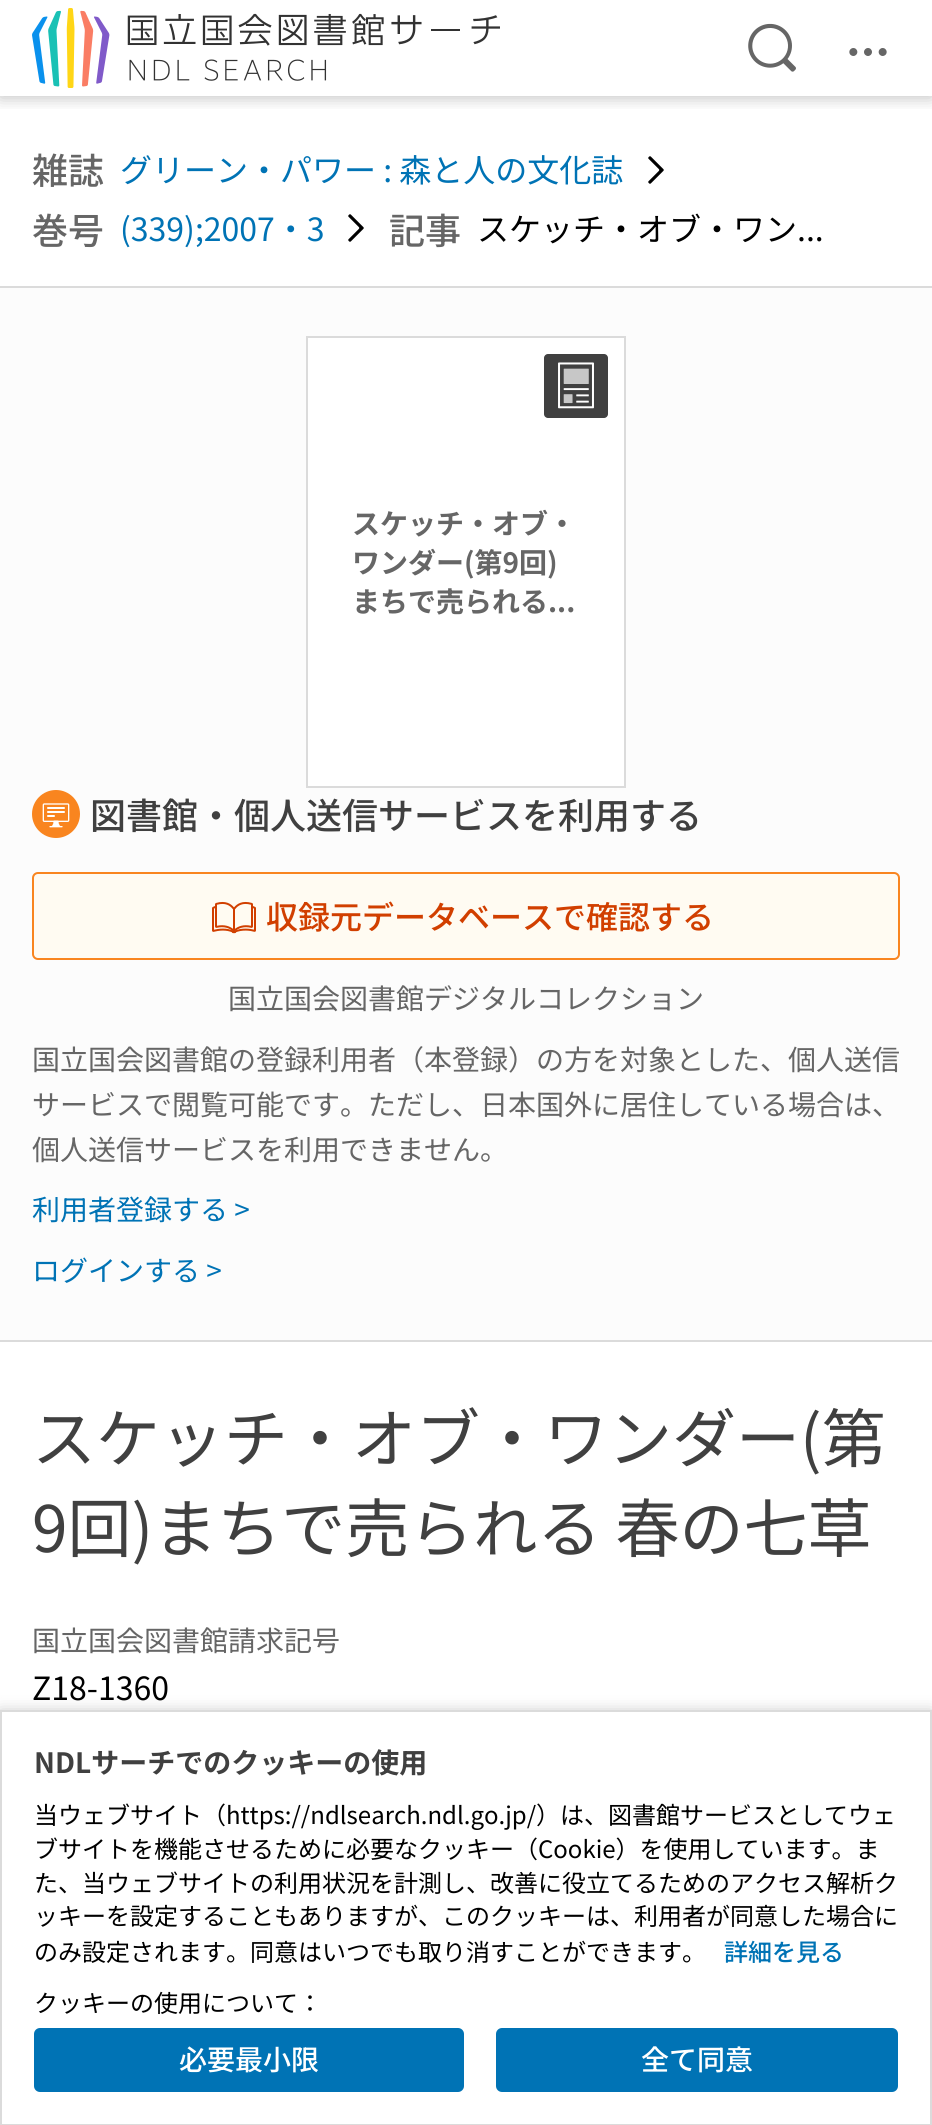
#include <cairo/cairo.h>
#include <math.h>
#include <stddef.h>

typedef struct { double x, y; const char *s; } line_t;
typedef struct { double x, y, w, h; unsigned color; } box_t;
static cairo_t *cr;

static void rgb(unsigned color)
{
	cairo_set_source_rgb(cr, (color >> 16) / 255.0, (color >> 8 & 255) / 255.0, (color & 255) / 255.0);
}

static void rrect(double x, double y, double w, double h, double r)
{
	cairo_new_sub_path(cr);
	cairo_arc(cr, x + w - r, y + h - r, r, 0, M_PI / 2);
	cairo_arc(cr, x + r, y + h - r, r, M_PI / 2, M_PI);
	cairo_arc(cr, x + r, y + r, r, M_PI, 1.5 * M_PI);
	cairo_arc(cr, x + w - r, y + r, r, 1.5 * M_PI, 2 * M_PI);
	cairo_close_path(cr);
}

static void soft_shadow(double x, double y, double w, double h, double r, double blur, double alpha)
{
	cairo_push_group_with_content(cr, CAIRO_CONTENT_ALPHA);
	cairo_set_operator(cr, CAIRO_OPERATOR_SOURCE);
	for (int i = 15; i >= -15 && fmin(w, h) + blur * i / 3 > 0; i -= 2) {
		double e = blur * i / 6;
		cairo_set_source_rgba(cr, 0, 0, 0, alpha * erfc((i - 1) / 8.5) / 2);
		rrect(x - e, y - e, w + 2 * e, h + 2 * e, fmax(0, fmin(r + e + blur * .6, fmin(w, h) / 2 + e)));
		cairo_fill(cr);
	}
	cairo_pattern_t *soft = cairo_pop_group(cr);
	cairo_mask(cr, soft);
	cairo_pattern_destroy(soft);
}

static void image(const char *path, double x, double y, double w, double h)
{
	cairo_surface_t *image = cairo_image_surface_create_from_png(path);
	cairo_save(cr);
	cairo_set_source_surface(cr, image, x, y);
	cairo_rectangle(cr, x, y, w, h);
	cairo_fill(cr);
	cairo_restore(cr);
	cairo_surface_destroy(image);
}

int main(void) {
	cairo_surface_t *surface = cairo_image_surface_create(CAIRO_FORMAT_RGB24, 932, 2125);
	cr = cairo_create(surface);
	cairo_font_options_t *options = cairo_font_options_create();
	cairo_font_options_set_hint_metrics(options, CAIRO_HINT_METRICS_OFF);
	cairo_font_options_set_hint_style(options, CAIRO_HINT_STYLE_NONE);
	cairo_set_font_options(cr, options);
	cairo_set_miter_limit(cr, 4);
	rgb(0xffffff);
	cairo_paint(cr);
	cairo_save(cr);
	cairo_rectangle(cr, 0, 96, 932, 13);
	cairo_clip(cr);
	rgb(0x000000);
	soft_shadow(0, 2, 932, 96, 0, 8, 0.24);
	cairo_restore(cr);
	image("img/1.png", 32, 8, 468, 80);
	image("img/2.png", 748, 23, 48, 49);
	image("img/3.png", 849, 48, 38, 8);
	image("img/4.png", 648, 156, 16, 28);
	image("img/4.png", 348, 214, 16, 28);
	{
		static const box_t items[] = {
			{0, 288, 932, 1052, 0xfcfcfc},
			{0, 286, 932, 2, 0xdbdbdb},
			{0, 1340, 932, 2, 0xdbdbdb},
		};
		for (size_t i = 0; i < sizeof items / sizeof *items; i++) {
			rgb(items[i].color);
			cairo_rectangle(cr, items[i].x, items[i].y, items[i].w, items[i].h);
			cairo_fill(cr);
		}
	}
	rgb(0xffffff);
	cairo_rectangle(cr, 307, 337, 318, 450);
	cairo_fill_preserve(cr);
	rgb(0xdbdbdb);
	cairo_stroke(cr);
	image("img/5.png", 544, 354, 64, 64);
	image("img/6.png", 32, 790, 48, 48);
	rgb(0xfffbf2);
	rrect(33, 873, 866, 86, 5);
	cairo_fill_preserve(cr);
	rgb(0xf9851f);
	cairo_stroke(cr);
	image("img/7.png", 212, 901, 44, 33);
	rgb(0x000000);
	soft_shadow(0, 1712, 932, 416, 0, 8, 0.24);
	rgb(0xffffff);
	cairo_rectangle(cr, 1, 1711, 930, 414);
	cairo_fill_preserve(cr);
	rgb(0xdbdbdb);
	cairo_stroke(cr);
	rgb(0x0073b5);
	rrect(35, 2029, 428, 62, 5);
	cairo_fill_preserve(cr);
	cairo_stroke(cr);
	rrect(497, 2029, 400, 62, 5);
	cairo_fill_preserve(cr);
	cairo_stroke(cr);
	cairo_select_font_face(cr, "Noto Sans JP Medium", CAIRO_FONT_SLANT_NORMAL, CAIRO_FONT_WEIGHT_NORMAL);
	cairo_set_font_size(cr, 36);
	rgb(0x666666);
	cairo_move_to(cr, 32, 184);
	cairo_show_text(cr, "雑誌");
	cairo_select_font_face(cr, "Noto Sans JP", CAIRO_FONT_SLANT_NORMAL, CAIRO_FONT_WEIGHT_NORMAL);
	cairo_set_font_size(cr, 32);
	rgb(0x0073b5);
	cairo_move_to(cr, 120, 182);
	cairo_show_text(cr, "グリーン・パワー : 森と人の文化誌");
	cairo_select_font_face(cr, "Noto Sans JP Medium", CAIRO_FONT_SLANT_NORMAL, CAIRO_FONT_WEIGHT_NORMAL);
	cairo_set_font_size(cr, 36);
	rgb(0x666666);
	cairo_move_to(cr, 32, 244);
	cairo_show_text(cr, "巻号");
	cairo_select_font_face(cr, "Noto Sans JP", CAIRO_FONT_SLANT_NORMAL, CAIRO_FONT_WEIGHT_NORMAL);
	cairo_set_font_size(cr, 32);
	rgb(0x0073b5);
	cairo_move_to(cr, 120, 241);
	cairo_show_text(cr, "(339);2007・3");
	cairo_select_font_face(cr, "Noto Sans JP Medium", CAIRO_FONT_SLANT_NORMAL, CAIRO_FONT_WEIGHT_NORMAL);
	cairo_set_font_size(cr, 36);
	rgb(0x666666);
	cairo_move_to(cr, 389, 244);
	cairo_show_text(cr, "記事");
	cairo_select_font_face(cr, "Noto Sans JP", CAIRO_FONT_SLANT_NORMAL, CAIRO_FONT_WEIGHT_NORMAL);
	cairo_set_font_size(cr, 32);
	rgb(0x000000);
	cairo_move_to(cr, 477, 241);
	cairo_show_text(cr, "スケッチ・オブ・ワン...");
	cairo_select_font_face(cr, "Noto Sans JP", CAIRO_FONT_SLANT_NORMAL, CAIRO_FONT_WEIGHT_BOLD);
	cairo_set_font_size(cr, 28);
	rgb(0x666666);
	{
		static const line_t items[] = {
			{352, 534, "スケッチ・オブ・"},
			{352, 573, "ワンダー(第9回)"},
			{352, 612, "まちで売られる..."},
		};
		for (size_t i = 0; i < sizeof items / sizeof *items; i++) {
			cairo_move_to(cr, items[i].x, items[i].y);
			cairo_show_text(cr, items[i].s);
		}
	}
	cairo_select_font_face(cr, "Noto Sans JP Medium", CAIRO_FONT_SLANT_NORMAL, CAIRO_FONT_WEIGHT_NORMAL);
	cairo_set_font_size(cr, 36);
	rgb(0x404040);
	cairo_move_to(cr, 90, 829);
	cairo_show_text(cr, "図書館・個人送信サービスを利用する");
	cairo_set_font_size(cr, 32);
	rgb(0xd13f00);
	cairo_move_to(cr, 266, 929);
	cairo_show_text(cr, "収録元データベースで確認する");
	cairo_select_font_face(cr, "Noto Sans JP", CAIRO_FONT_SLANT_NORMAL, CAIRO_FONT_WEIGHT_NORMAL);
	cairo_set_font_size(cr, 28);
	rgb(0x666666);
	{
		static const line_t items[] = {
			{228, 1009, "国立国会図書館デジタルコレクション"},
			{32, 1070, "国立国会図書館の登録利用者（本登録）の方を対象とした、個人送信"},
			{32, 1115, "サービスで閲覧可能です。ただし、日本国外に居住している場合は、"},
			{32, 1160, "個人送信サービスを利用できません。"},
		};
		for (size_t i = 0; i < sizeof items / sizeof *items; i++) {
			cairo_move_to(cr, items[i].x, items[i].y);
			cairo_show_text(cr, items[i].s);
		}
	}
	rgb(0x0073b5);
	cairo_move_to(cr, 32, 1220);
	cairo_show_text(cr, "利用者登録する >");
	cairo_move_to(cr, 32, 1281);
	cairo_show_text(cr, "ログインする >");
	cairo_set_font_size(cr, 64);
	rgb(0x404040);
	cairo_move_to(cr, 32, 1462);
	cairo_show_text(cr, "スケッチ・オブ・ワンダー(第");
	cairo_move_to(cr, 32, 1552);
	cairo_show_text(cr, "9回)まちで売られる 春の七草");
	cairo_set_font_size(cr, 28);
	rgb(0x666666);
	cairo_move_to(cr, 32, 1651);
	cairo_show_text(cr, "国立国会図書館請求記号");
	cairo_set_font_size(cr, 32);
	rgb(0x000000);
	cairo_move_to(cr, 32, 1700);
	cairo_show_text(cr, "Z18-1360");
	cairo_select_font_face(cr, "Noto Sans JP", CAIRO_FONT_SLANT_NORMAL, CAIRO_FONT_WEIGHT_BOLD);
	cairo_set_font_size(cr, 28);
	rgb(0x404040);
	cairo_move_to(cr, 34, 1773);
	cairo_show_text(cr, "NDLサーチでのクッキーの使用");
	cairo_select_font_face(cr, "Noto Sans JP", CAIRO_FONT_SLANT_NORMAL, CAIRO_FONT_WEIGHT_NORMAL);
	cairo_set_font_size(cr, 24);
	rgb(0x000000);
	{
		static const line_t items[] = {
			{34, 1824, "当ウェブサイト（https://ndlsearch.ndl.go.jp/）は、図書館サービスとしてウェ"},
			{34, 1858, "ブサイトを機能させるために必要なクッキー（Cookie）を使用しています。ま"},
			{34, 1892, "た、当ウェブサイトの利用状況を計測し、改善に役立てるためのアクセス解析ク"},
			{34, 1925, "ッキーを設定することもありますが、このクッキーは、利用者が同意した場合に"},
			{34, 1961, "のみ設定されます。同意はいつでも取り消すことができます。"},
		};
		for (size_t i = 0; i < sizeof items / sizeof *items; i++) {
			cairo_move_to(cr, items[i].x, items[i].y);
			cairo_show_text(cr, items[i].s);
		}
	}
	cairo_select_font_face(cr, "Noto Sans JP Medium", CAIRO_FONT_SLANT_NORMAL, CAIRO_FONT_WEIGHT_NORMAL);
	rgb(0x0073b5);
	cairo_move_to(cr, 724, 1961);
	cairo_show_text(cr, "詳細を見る");
	cairo_select_font_face(cr, "Noto Sans JP", CAIRO_FONT_SLANT_NORMAL, CAIRO_FONT_WEIGHT_NORMAL);
	rgb(0x000000);
	cairo_move_to(cr, 34, 2012);
	cairo_show_text(cr, "クッキーの使用について：");
	cairo_select_font_face(cr, "Noto Sans JP Medium", CAIRO_FONT_SLANT_NORMAL, CAIRO_FONT_WEIGHT_NORMAL);
	cairo_set_font_size(cr, 28);
	rgb(0xffffff);
	cairo_move_to(cr, 179, 2070);
	cairo_show_text(cr, "必要最小限");
	cairo_move_to(cr, 641, 2070);
	cairo_show_text(cr, "全て同意");
	cairo_surface_write_to_png(surface, "page.png");
	cairo_font_options_destroy(options);
	cairo_destroy(cr);
	cairo_surface_destroy(surface);
	return 0;
}
